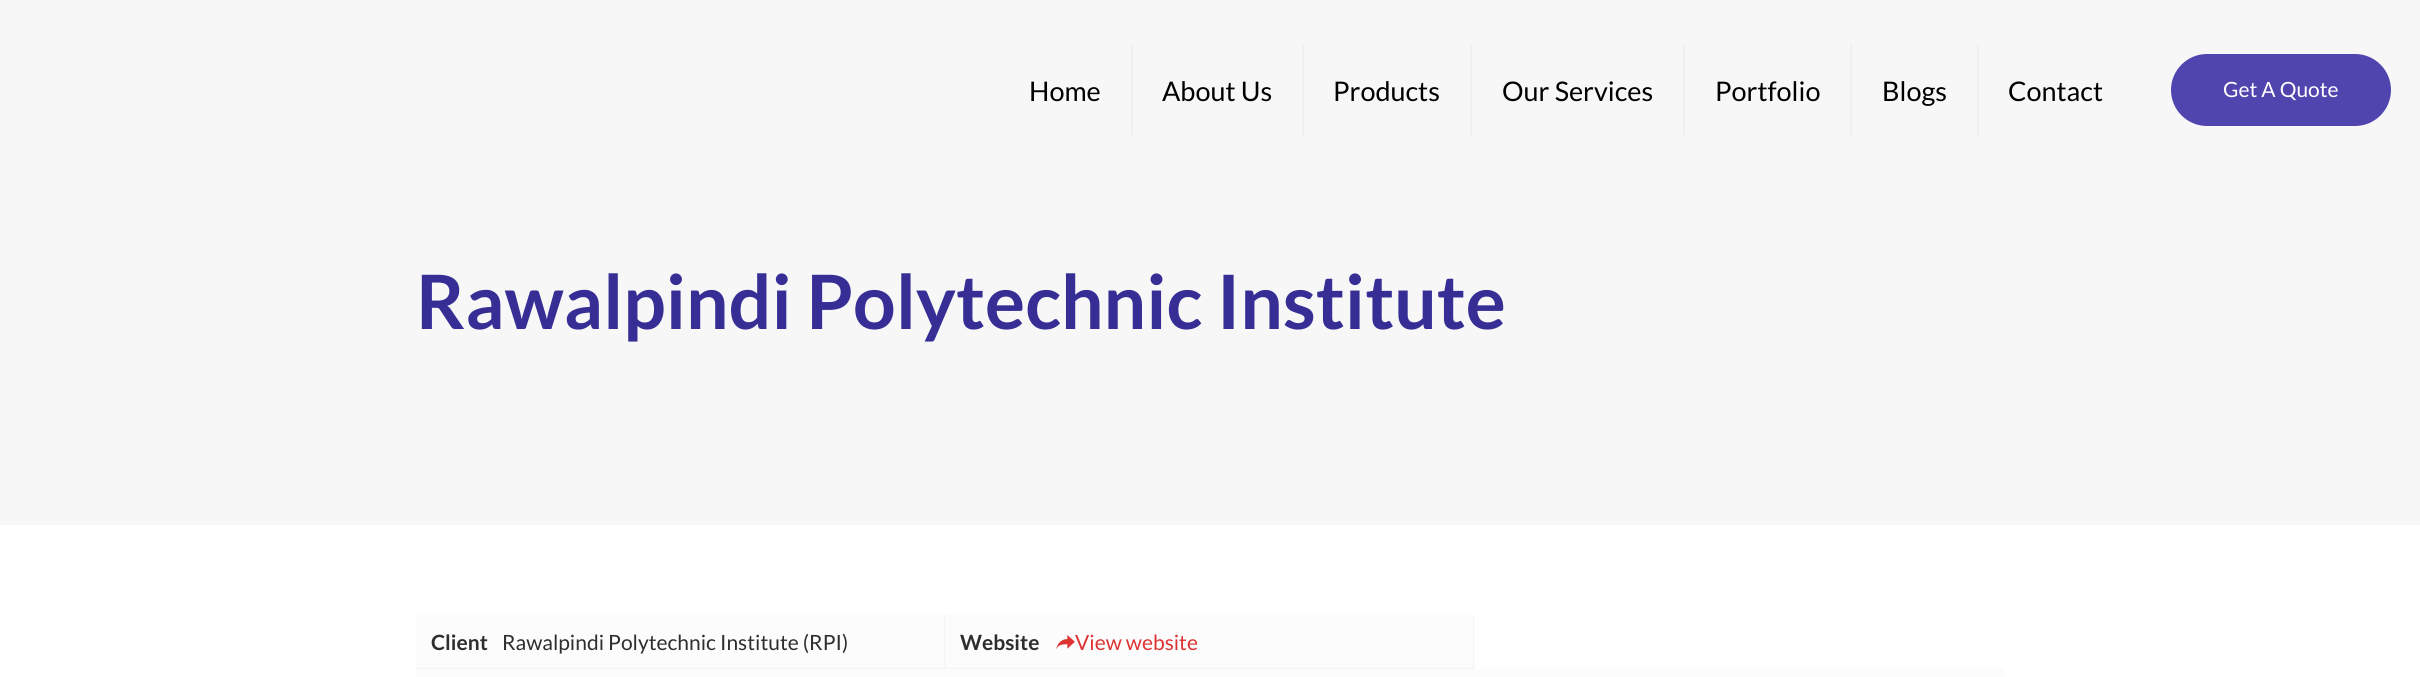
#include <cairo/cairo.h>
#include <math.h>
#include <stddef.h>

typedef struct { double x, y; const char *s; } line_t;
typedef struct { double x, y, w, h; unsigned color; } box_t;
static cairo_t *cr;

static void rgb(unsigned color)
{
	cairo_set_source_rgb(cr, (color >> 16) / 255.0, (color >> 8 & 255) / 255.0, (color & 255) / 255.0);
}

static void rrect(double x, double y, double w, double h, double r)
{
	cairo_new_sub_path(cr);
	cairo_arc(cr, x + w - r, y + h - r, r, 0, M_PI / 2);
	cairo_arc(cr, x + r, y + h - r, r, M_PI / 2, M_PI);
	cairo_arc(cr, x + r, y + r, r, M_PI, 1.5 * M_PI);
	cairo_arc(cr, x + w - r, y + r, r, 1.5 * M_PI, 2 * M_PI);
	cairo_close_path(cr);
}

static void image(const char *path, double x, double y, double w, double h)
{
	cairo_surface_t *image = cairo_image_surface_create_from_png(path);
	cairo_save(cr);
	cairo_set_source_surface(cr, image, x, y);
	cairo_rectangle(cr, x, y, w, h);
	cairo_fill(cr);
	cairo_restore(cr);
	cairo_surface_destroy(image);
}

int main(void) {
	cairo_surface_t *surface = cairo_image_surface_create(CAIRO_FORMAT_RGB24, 2420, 677);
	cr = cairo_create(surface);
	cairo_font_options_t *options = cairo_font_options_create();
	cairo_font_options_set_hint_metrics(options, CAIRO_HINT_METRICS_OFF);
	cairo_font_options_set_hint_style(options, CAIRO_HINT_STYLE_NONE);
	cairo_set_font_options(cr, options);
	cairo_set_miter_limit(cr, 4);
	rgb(0xffffff);
	cairo_paint(cr);
	{
		static const box_t items[] = {
			{0, 0, 2420, 525, 0xf7f7f7},
			{1131, 45, 2, 90, 0xf0f0f0},
			{1302, 45, 2, 90, 0xf0f0f0},
			{1470, 45, 2, 90, 0xf0f0f0},
			{1683, 45, 2, 90, 0xf0f0f0},
			{1850, 45, 2, 90, 0xf0f0f0},
			{1977, 45, 2, 90, 0xf0f0f0},
		};
		for (size_t i = 0; i < sizeof items / sizeof *items; i++) {
			rgb(items[i].color);
			cairo_rectangle(cr, items[i].x, items[i].y, items[i].w, items[i].h);
			cairo_fill(cr);
		}
	}
	rgb(0x5045af);
	rrect(2171, 54, 220, 72, 36);
	cairo_fill(cr);
	rgb(0xfcfcfc);
	cairo_rectangle(cr, 416, 615, 1059, 54);
	cairo_fill(cr);
	rgb(0xf4f4f4);
	cairo_new_path(cr);
	cairo_move_to(cr, 945, 615);
	cairo_line_to(cr, 945, 669);
	cairo_line_to(cr, 944, 668);
	cairo_line_to(cr, 944, 615);
	cairo_close_path(cr);
	cairo_fill(cr);
	cairo_set_source_rgba(cr, 0, 0, 0, 0.03);
	cairo_new_path(cr);
	cairo_move_to(cr, 945, 669);
	cairo_line_to(cr, 416, 669);
	cairo_line_to(cr, 416, 668);
	cairo_line_to(cr, 944, 668);
	cairo_close_path(cr);
	cairo_fill(cr);
	rgb(0xf4f4f4);
	cairo_new_path(cr);
	cairo_move_to(cr, 1474, 615);
	cairo_line_to(cr, 1474, 669);
	cairo_line_to(cr, 1473, 668);
	cairo_line_to(cr, 1473, 615);
	cairo_close_path(cr);
	cairo_fill(cr);
	cairo_set_source_rgba(cr, 0, 0, 0, 0.03);
	cairo_new_path(cr);
	cairo_move_to(cr, 1474, 669);
	cairo_line_to(cr, 945, 669);
	cairo_line_to(cr, 945, 668);
	cairo_line_to(cr, 1473, 668);
	cairo_close_path(cr);
	cairo_fill(cr);
	image("img/1.png", 1056, 635, 19, 14);
	rgb(0xfcfcfc);
	cairo_rectangle(cr, 416, 669, 1588, 8);
	cairo_fill(cr);
	cairo_select_font_face(cr, "Lato", CAIRO_FONT_SLANT_NORMAL, CAIRO_FONT_WEIGHT_NORMAL);
	cairo_set_font_size(cr, 27);
	rgb(0x000000);
	{
		static const line_t items[] = {
			{1029, 101, "Home"},
			{1162, 101, "About Us"},
			{1333, 101, "Products"},
			{1502, 101, "Our Services"},
			{1715, 101, "Portfolio"},
			{1882, 101, "Blogs"},
			{2008, 101, "Contact"},
		};
		for (size_t i = 0; i < sizeof items / sizeof *items; i++) {
			cairo_move_to(cr, items[i].x, items[i].y);
			cairo_show_text(cr, items[i].s);
		}
	}
	cairo_set_font_size(cr, 21);
	rgb(0xffffff);
	cairo_move_to(cr, 2223, 97);
	cairo_show_text(cr, "Get A Quote");
	cairo_select_font_face(cr, "Lato", CAIRO_FONT_SLANT_NORMAL, CAIRO_FONT_WEIGHT_BOLD);
	cairo_set_font_size(cr, 75);
	rgb(0x362e95);
	cairo_move_to(cr, 416, 329);
	cairo_show_text(cr, "Rawalpindi Polytechnic Institute");
	cairo_set_font_size(cr, 21);
	rgb(0x2e2e2e);
	cairo_move_to(cr, 431, 650);
	cairo_show_text(cr, "Client");
	cairo_select_font_face(cr, "Lato", CAIRO_FONT_SLANT_NORMAL, CAIRO_FONT_WEIGHT_NORMAL);
	cairo_move_to(cr, 502, 650);
	cairo_show_text(cr, "Rawalpindi Polytechnic Institute (RPI)");
	cairo_select_font_face(cr, "Lato", CAIRO_FONT_SLANT_NORMAL, CAIRO_FONT_WEIGHT_BOLD);
	cairo_move_to(cr, 960, 650);
	cairo_show_text(cr, "Website");
	cairo_select_font_face(cr, "Lato", CAIRO_FONT_SLANT_NORMAL, CAIRO_FONT_WEIGHT_NORMAL);
	rgb(0xdd3333);
	cairo_move_to(cr, 1075, 650);
	cairo_show_text(cr, "View website");
	cairo_surface_write_to_png(surface, "page.png");
	cairo_font_options_destroy(options);
	cairo_destroy(cr);
	cairo_surface_destroy(surface);
	return 0;
}
